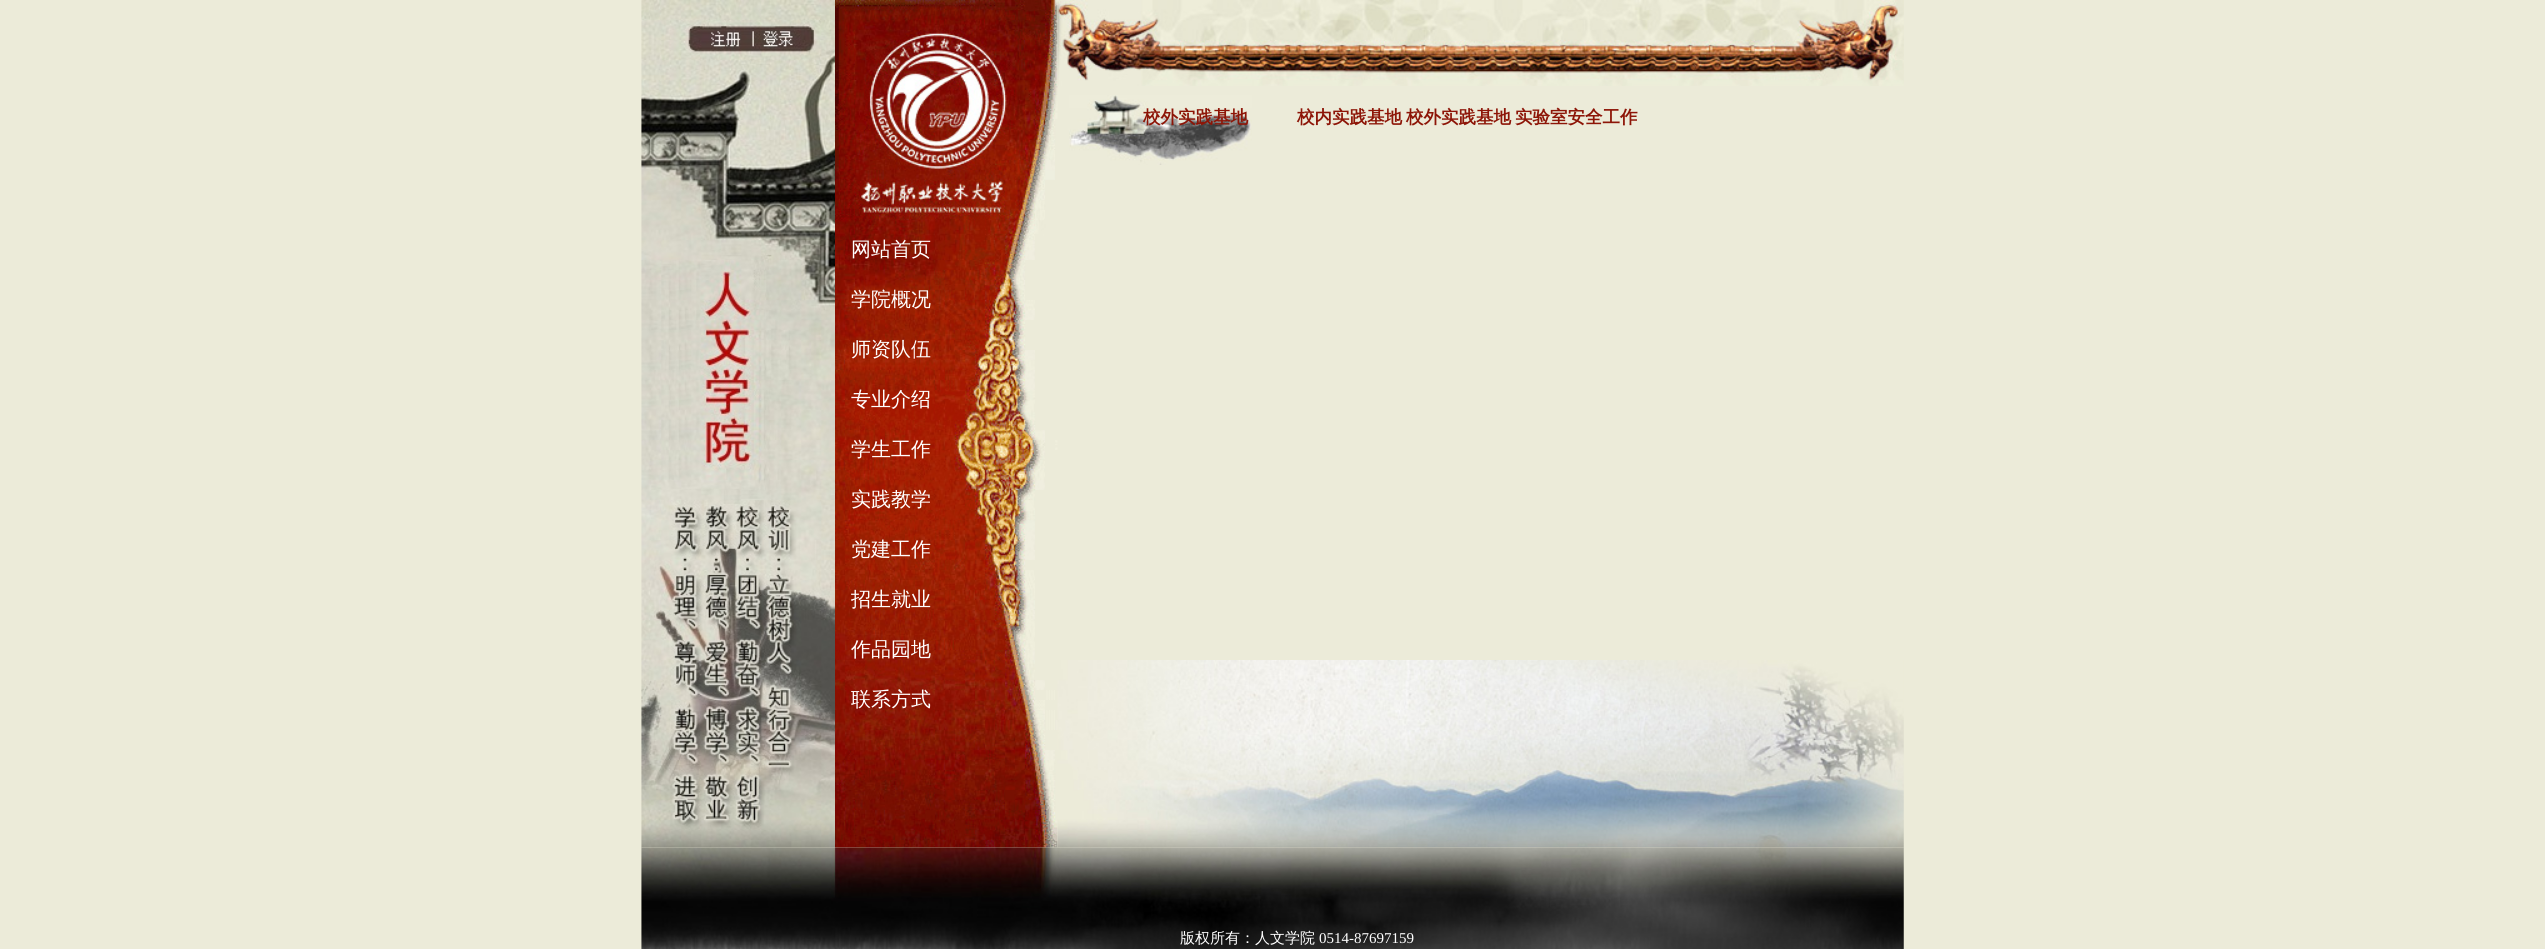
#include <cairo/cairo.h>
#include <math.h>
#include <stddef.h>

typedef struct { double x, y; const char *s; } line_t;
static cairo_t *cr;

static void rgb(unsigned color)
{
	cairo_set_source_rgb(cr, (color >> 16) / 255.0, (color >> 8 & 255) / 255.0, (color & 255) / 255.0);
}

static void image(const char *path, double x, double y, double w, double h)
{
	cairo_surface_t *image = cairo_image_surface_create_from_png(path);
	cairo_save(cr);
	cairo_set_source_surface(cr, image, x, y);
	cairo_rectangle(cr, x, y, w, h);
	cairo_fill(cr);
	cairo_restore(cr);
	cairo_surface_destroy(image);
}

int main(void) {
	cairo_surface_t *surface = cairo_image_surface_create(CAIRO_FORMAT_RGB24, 2545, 949);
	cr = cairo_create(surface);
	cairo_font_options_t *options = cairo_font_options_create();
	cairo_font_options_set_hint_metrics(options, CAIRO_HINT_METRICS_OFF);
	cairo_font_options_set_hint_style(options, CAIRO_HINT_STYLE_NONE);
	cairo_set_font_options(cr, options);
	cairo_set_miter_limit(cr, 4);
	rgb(0xecebd9);
	cairo_paint(cr);
	image("img/5.png", 835, 0, 223, 848);
	image("img/1.png", 1057, 660, 847, 188);
	image("img/2.png", 1057, 0, 847, 86);
	image("img/3.png", 1069, 95, 183, 70);
	image("img/6.png", 641, 847, 1263, 102);
	image("img/4.png", 641, 0, 194, 848);
	cairo_select_font_face(cr, "WenQuanYi Zen Hei", CAIRO_FONT_SLANT_NORMAL, CAIRO_FONT_WEIGHT_BOLD);
	cairo_set_font_size(cr, 17.5);
	rgb(0x8d1507);
	{
		static const line_t items[] = {
			{1143, 123, "校外实践基地"},
			{1297, 123, "校内实践基地"},
			{1406, 123, "校外实践基地"},
			{1515, 123, "实验室安全工作"},
		};
		for (size_t i = 0; i < sizeof items / sizeof *items; i++) {
			cairo_move_to(cr, items[i].x, items[i].y);
			cairo_show_text(cr, items[i].s);
		}
	}
	cairo_select_font_face(cr, "WenQuanYi Zen Hei Medium", CAIRO_FONT_SLANT_NORMAL, CAIRO_FONT_WEIGHT_NORMAL);
	cairo_set_font_size(cr, 20);
	rgb(0xffffff);
	{
		static const line_t items[] = {
			{851, 256, "网站首页"},
			{851, 306, "学院概况"},
			{851, 356, "师资队伍"},
			{851, 406, "专业介绍"},
			{851, 456, "学生工作"},
			{851, 506, "实践教学"},
			{851, 556, "党建工作"},
			{851, 606, "招生就业"},
			{851, 656, "作品园地"},
			{851, 706, "联系方式"},
		};
		for (size_t i = 0; i < sizeof items / sizeof *items; i++) {
			cairo_move_to(cr, items[i].x, items[i].y);
			cairo_show_text(cr, items[i].s);
		}
	}
	cairo_set_font_size(cr, 15);
	cairo_move_to(cr, 1180, 943);
	cairo_show_text(cr, "版权所有：人文学院");
	cairo_select_font_face(cr, "Liberation Serif", CAIRO_FONT_SLANT_NORMAL, CAIRO_FONT_WEIGHT_NORMAL);
	cairo_move_to(cr, 1319, 943);
	cairo_show_text(cr, "0514-87697159");
	cairo_surface_write_to_png(surface, "page.png");
	cairo_font_options_destroy(options);
	cairo_destroy(cr);
	cairo_surface_destroy(surface);
	return 0;
}
